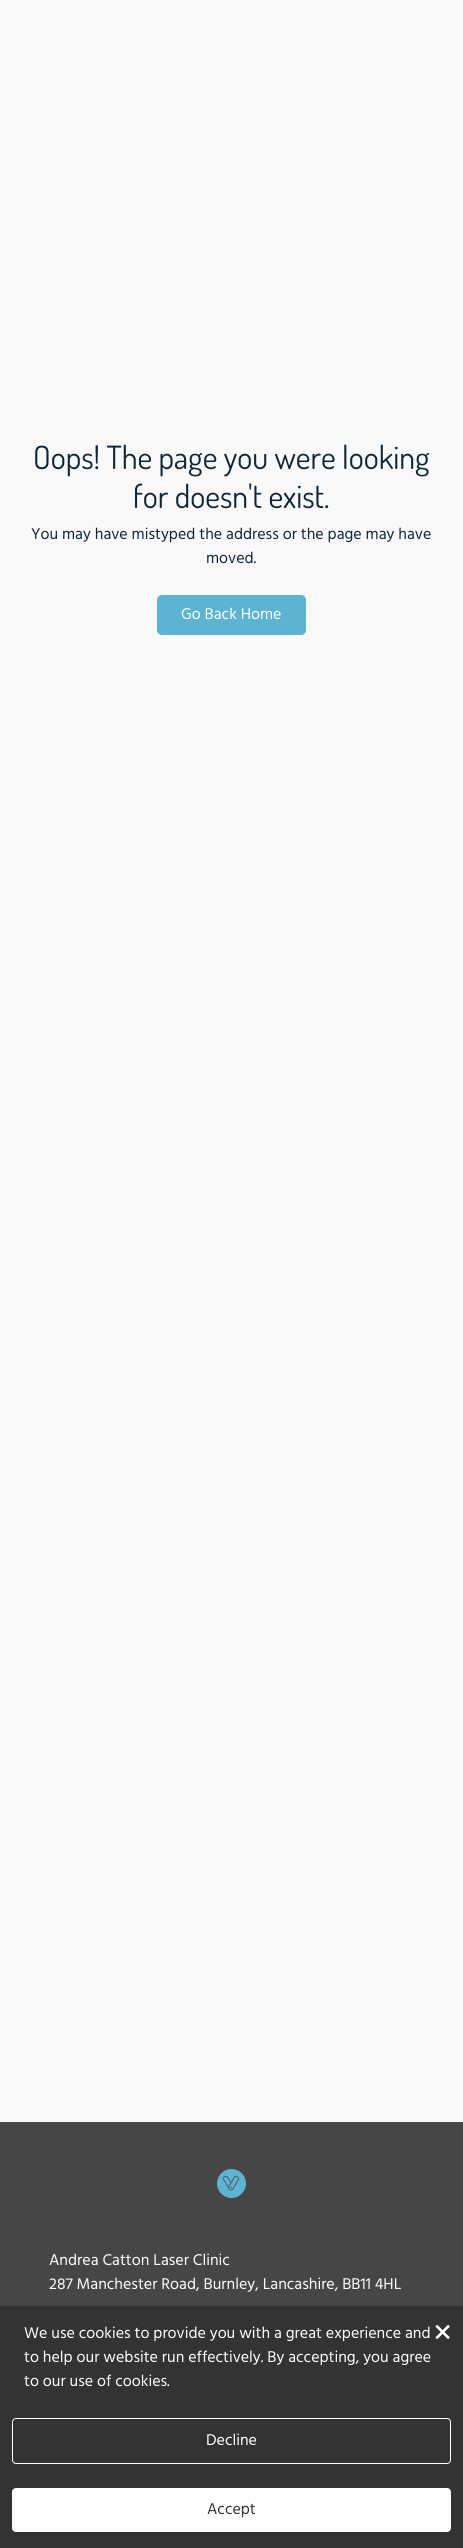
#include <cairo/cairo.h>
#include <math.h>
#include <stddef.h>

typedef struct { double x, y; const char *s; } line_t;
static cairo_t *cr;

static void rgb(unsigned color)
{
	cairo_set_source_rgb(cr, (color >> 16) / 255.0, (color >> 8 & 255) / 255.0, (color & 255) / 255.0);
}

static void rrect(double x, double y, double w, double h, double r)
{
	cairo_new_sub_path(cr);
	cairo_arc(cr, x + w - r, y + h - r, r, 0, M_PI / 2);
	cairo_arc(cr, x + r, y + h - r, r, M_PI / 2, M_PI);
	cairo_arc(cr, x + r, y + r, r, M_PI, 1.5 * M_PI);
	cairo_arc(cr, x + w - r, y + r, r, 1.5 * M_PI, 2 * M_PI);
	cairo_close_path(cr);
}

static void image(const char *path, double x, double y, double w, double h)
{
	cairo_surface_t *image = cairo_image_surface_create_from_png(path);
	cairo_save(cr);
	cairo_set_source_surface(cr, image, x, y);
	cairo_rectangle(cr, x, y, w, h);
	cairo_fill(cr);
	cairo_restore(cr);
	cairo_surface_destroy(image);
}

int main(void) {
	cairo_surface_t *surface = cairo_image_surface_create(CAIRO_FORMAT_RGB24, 463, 2548);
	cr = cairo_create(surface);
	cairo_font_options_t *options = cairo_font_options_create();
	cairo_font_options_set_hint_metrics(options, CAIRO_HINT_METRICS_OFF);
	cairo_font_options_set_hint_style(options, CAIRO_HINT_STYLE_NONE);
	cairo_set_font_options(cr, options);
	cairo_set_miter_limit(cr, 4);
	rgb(0xf9f9f9);
	cairo_paint(cr);
	rgb(0x5cb4d2);
	rrect(157, 595, 149, 40, 5);
	cairo_fill(cr);
	rgb(0x464646);
	cairo_rectangle(cr, 0, 2122, 463, 184);
	cairo_fill(cr);
	rgb(0x5cb4d2);
	cairo_arc(cr, 231.5, 2183.5, 14.5, 0, 2 * M_PI);
	cairo_fill(cr);
	image("img/1.png", 223, 2175, 16, 16);
	rgb(0x333333);
	cairo_rectangle(cr, 0, 2306, 463, 242);
	cairo_fill(cr);
	rrect(12.5, 2418.5, 438, 45, 3.5);
	rgb(0xffffff);
	cairo_set_line_width(cr, 1);
	cairo_stroke(cr);
	rrect(12, 2488, 439, 44, 4);
	cairo_fill(cr);
	cairo_select_font_face(cr, "Dosis", CAIRO_FONT_SLANT_NORMAL, CAIRO_FONT_WEIGHT_NORMAL);
	cairo_set_font_size(cr, 32);
	rgb(0x102636);
	cairo_move_to(cr, 33, 469);
	cairo_show_text(cr, "Oops! The page you were looking");
	cairo_move_to(cr, 133, 508);
	cairo_show_text(cr, "for doesn't exist.");
	cairo_select_font_face(cr, "Hind", CAIRO_FONT_SLANT_NORMAL, CAIRO_FONT_WEIGHT_NORMAL);
	cairo_set_font_size(cr, 16);
	cairo_move_to(cr, 31, 539);
	cairo_show_text(cr, "You may have mistyped the address or the page may have");
	cairo_move_to(cr, 206, 563);
	cairo_show_text(cr, "moved.");
	rgb(0xffffff);
	{
		static const line_t items[] = {
			{181, 619, "Go Back Home"},
			{49, 2265, "Andrea Catton Laser Clinic"},
			{49, 2289, "287 Manchester Road, Burnley, Lancashire, BB11 4HL"},
			{24, 2338, "We use cookies to provide you with a great experience and"},
			{24, 2362, "to help our website run effectively. By accepting, you agree"},
			{24, 2386, "to our use of cookies."},
		};
		for (size_t i = 0; i < sizeof items / sizeof *items; i++) {
			cairo_move_to(cr, items[i].x, items[i].y);
			cairo_show_text(cr, items[i].s);
		}
	}
	cairo_select_font_face(cr, "DejaVu Sans Mono", CAIRO_FONT_SLANT_NORMAL, CAIRO_FONT_WEIGHT_NORMAL);
	cairo_set_font_size(cr, 32);
	cairo_move_to(cr, 433, 2342);
	cairo_show_text(cr, "×");
	cairo_select_font_face(cr, "Hind", CAIRO_FONT_SLANT_NORMAL, CAIRO_FONT_WEIGHT_NORMAL);
	cairo_set_font_size(cr, 16);
	cairo_move_to(cr, 206, 2445);
	cairo_show_text(cr, "Decline");
	rgb(0x333333);
	cairo_move_to(cr, 207, 2514);
	cairo_show_text(cr, "Accept");
	cairo_surface_write_to_png(surface, "page.png");
	cairo_font_options_destroy(options);
	cairo_destroy(cr);
	cairo_surface_destroy(surface);
	return 0;
}
